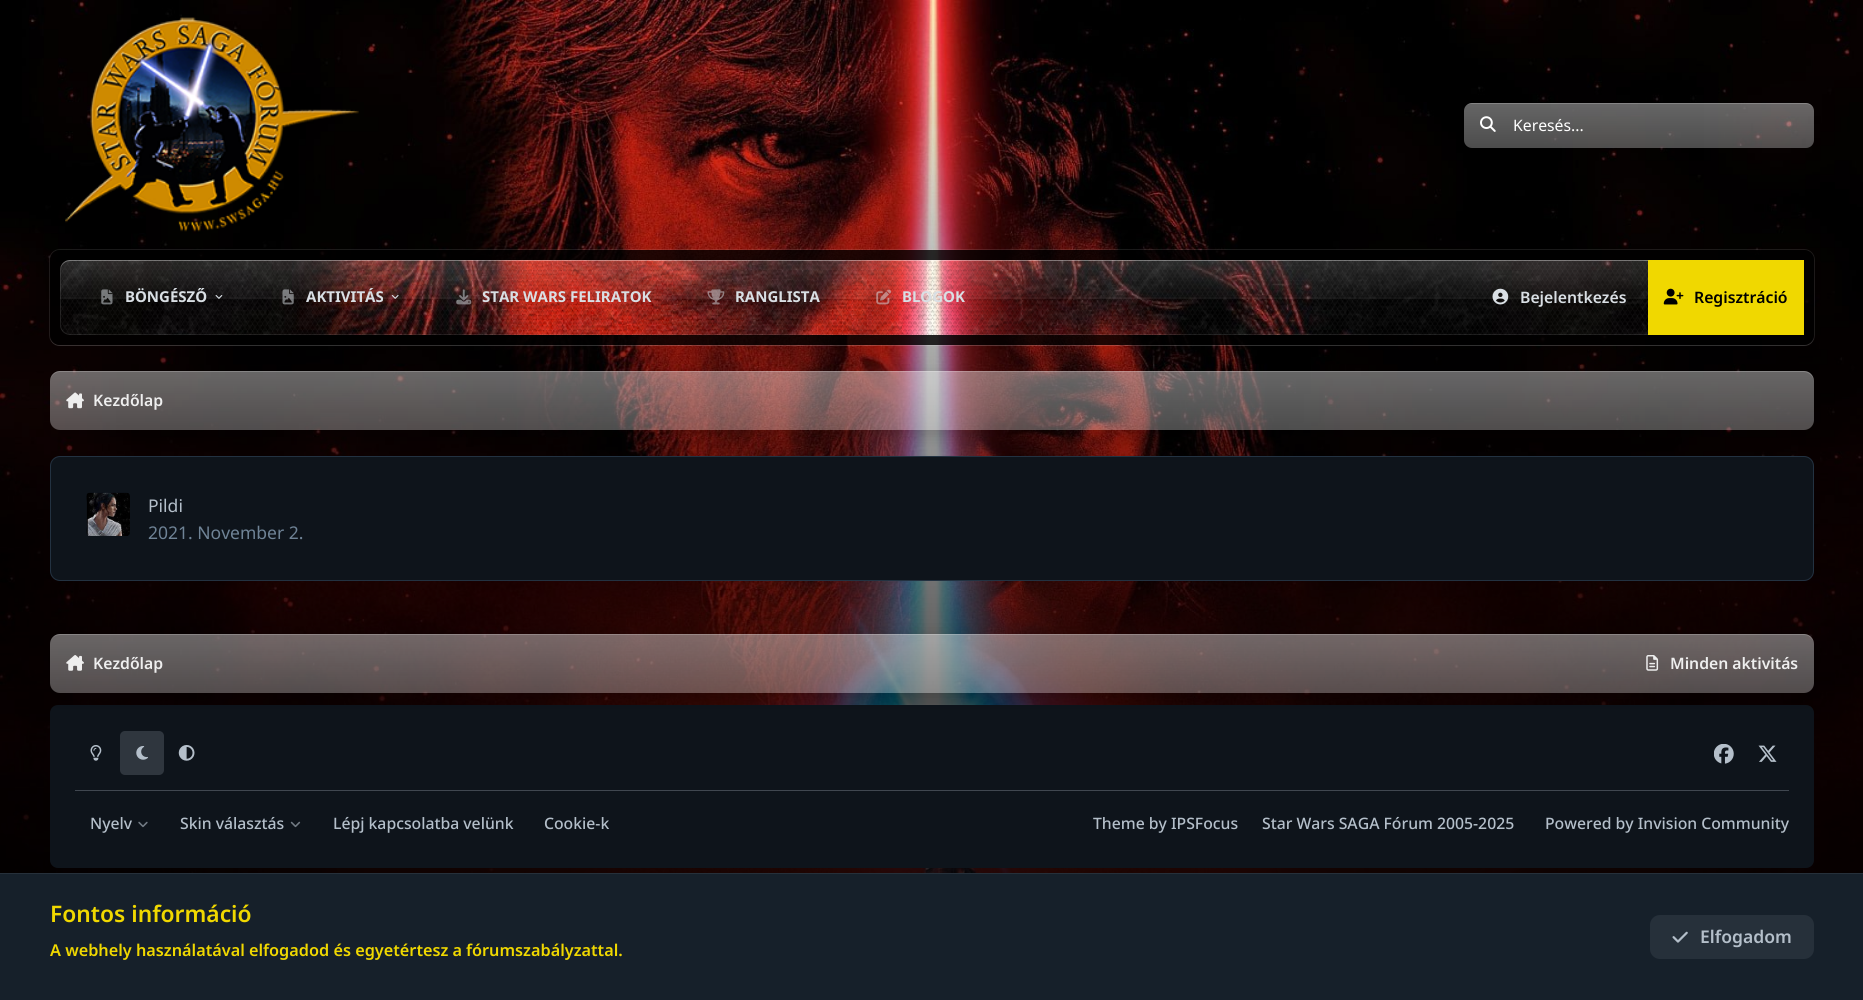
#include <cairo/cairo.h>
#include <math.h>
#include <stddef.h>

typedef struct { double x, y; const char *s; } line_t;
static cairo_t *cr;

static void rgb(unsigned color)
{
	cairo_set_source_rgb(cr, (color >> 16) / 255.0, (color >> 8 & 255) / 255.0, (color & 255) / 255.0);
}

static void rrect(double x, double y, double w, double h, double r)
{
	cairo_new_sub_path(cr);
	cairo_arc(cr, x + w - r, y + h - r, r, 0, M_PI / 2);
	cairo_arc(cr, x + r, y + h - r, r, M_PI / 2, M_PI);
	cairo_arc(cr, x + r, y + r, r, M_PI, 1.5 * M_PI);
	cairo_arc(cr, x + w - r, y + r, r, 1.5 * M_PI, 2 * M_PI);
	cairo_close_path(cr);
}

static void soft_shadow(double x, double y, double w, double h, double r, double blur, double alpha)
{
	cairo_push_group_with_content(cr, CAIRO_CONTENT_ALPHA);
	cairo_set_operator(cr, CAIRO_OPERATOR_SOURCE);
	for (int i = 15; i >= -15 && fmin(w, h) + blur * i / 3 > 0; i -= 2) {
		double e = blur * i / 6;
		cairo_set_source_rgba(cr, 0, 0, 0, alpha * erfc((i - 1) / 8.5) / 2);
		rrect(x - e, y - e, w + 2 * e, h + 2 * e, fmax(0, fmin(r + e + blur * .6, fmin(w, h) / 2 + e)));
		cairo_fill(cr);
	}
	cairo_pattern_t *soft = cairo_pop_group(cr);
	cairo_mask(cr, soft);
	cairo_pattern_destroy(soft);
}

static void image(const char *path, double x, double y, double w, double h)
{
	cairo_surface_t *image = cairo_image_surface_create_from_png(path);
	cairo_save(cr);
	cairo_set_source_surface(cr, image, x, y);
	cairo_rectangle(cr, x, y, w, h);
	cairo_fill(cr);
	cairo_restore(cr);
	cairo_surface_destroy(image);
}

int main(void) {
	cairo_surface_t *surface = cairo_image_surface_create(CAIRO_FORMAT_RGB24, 1863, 1000);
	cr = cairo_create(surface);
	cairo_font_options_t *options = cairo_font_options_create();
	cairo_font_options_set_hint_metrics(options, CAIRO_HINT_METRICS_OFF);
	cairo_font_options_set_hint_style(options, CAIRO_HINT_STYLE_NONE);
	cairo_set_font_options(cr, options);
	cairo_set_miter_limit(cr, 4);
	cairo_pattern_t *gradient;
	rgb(0x000000);
	cairo_paint(cr);
	image("img/1.png", 0, 0, 1863, 873);
	image("img/2.png", 65, 17, 294, 215);
	gradient = cairo_pattern_create_linear(1639, 102, 1639, 148);
	cairo_pattern_add_color_stop_rgba(gradient, 0, 1, 1, 1, 0.4);
	cairo_pattern_add_color_stop_rgba(gradient, 1, 1, 1, 1, 0.3);
	cairo_set_source(cr, gradient);
	cairo_pattern_destroy(gradient);
	rrect(1464, 103, 350, 45, 8);
	cairo_fill(cr);
	cairo_set_source_rgba(cr, 1, 1, 1, 0.2);
	cairo_new_path(cr);
	cairo_move_to(cr, 1471, 104);
	cairo_line_to(cr, 1806, 104);
	cairo_curve_to(cr, 1810, 104, 1814, 107, 1814, 111);
	cairo_curve_to(cr, 1814, 107, 1810, 103, 1806, 103);
	cairo_line_to(cr, 1472, 103);
	cairo_curve_to(cr, 1468, 103, 1464, 107, 1464, 111);
	cairo_curve_to(cr, 1464, 107, 1467, 104, 1471, 104);
	cairo_close_path(cr);
	cairo_fill(cr);
	image("img/3.png", 1480, 116, 16, 16);
	cairo_set_source_rgba(cr, 1, 1, 1, 0.1);
	cairo_new_path(cr);
	cairo_move_to(cr, 50, 335);
	cairo_line_to(cr, 50, 336);
	cairo_curve_to(cr, 50, 342, 54, 346, 60, 346);
	cairo_line_to(cr, 1804, 346);
	cairo_curve_to(cr, 1810, 346, 1814, 342, 1814, 336);
	cairo_line_to(cr, 1814, 261);
	cairo_line_to(cr, 1814, 258);
	cairo_line_to(cr, 1814, 335);
	cairo_curve_to(cr, 1814, 341, 1809, 345, 1804, 345);
	cairo_line_to(cr, 60, 345);
	cairo_curve_to(cr, 54, 345, 50, 341, 50, 335);
	cairo_close_path(cr);
	cairo_fill(cr);
	rrect(49.5, 249.5, 1765, 96, 10.5);
	cairo_set_line_width(cr, 1);
	cairo_stroke(cr);
	cairo_set_source_rgba(cr, 0, 0, 0, 0.8);
	rrect(50, 250, 1764, 95, 10);
	cairo_fill(cr);
	image("img/5.png", 87, 260, 1561, 75);
	image("img/4.png", 60, 260, 1588, 75);
	cairo_set_source_rgba(cr, 1, 1, 1, 0.3);
	cairo_new_path(cr);
	cairo_move_to(cr, 70, 261);
	cairo_line_to(cr, 1794, 261);
	cairo_curve_to(cr, 1799, 261, 1804, 266, 1804, 271);
	cairo_curve_to(cr, 1804, 265, 1800, 260, 1794, 260);
	cairo_line_to(cr, 70, 260);
	cairo_curve_to(cr, 64, 260, 60, 265, 60, 271);
	cairo_curve_to(cr, 60, 266, 64, 261, 70, 261);
	cairo_close_path(cr);
	cairo_fill(cr);
	rrect(60.5, 260.5, 1743, 74, 9.5);
	cairo_set_source_rgba(cr, 1, 1, 1, 0.1);
	cairo_stroke(cr);
	image("img/6.png", 101, 289, 12, 16);
	image("img/7.png", 215, 295, 8, 4);
	image("img/8.png", 282, 289, 12, 16);
	image("img/9.png", 391, 295, 8, 4);
	image("img/10.png", 456, 289, 16, 16);
	image("img/11.png", 707, 289, 18, 16);
	image("img/12.png", 876, 289, 16, 16);
	image("img/13.png", 1492, 288, 17, 17);
	rgb(0xf0d800);
	cairo_rectangle(cr, 1648, 260, 156, 75);
	cairo_fill(cr);
	image("img/14.png", 1663, 288, 21, 17);
	rgb(0x0e141b);
	rrect(50.5, 456.5, 1763, 124, 9.5);
	cairo_fill_preserve(cr);
	rgb(0x233241);
	cairo_stroke(cr);
	cairo_save(cr);
	cairo_set_fill_rule(cr, CAIRO_FILL_RULE_EVEN_ODD);
	cairo_new_path(cr);
	cairo_move_to(cr, 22, 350);
	cairo_line_to(cr, 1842, 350);
	cairo_line_to(cr, 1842, 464);
	cairo_line_to(cr, 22, 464);
	cairo_close_path(cr);
	cairo_move_to(cr, 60, 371);
	cairo_line_to(cr, 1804, 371);
	cairo_curve_to(cr, 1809.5, 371, 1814, 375.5, 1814, 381);
	cairo_line_to(cr, 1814, 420);
	cairo_curve_to(cr, 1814, 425.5, 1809.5, 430, 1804, 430);
	cairo_line_to(cr, 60, 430);
	cairo_curve_to(cr, 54.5, 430, 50, 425.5, 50, 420);
	cairo_line_to(cr, 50, 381);
	cairo_curve_to(cr, 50, 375.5, 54.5, 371, 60, 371);
	cairo_close_path(cr);
	cairo_clip(cr);
	rgb(0x000000);
	soft_shadow(50, 378, 1764, 58, 10, 9, 0.2);
	cairo_restore(cr);
	gradient = cairo_pattern_create_linear(932, 371, 932, 430);
	cairo_pattern_add_color_stop_rgba(gradient, 0, 1, 1, 1, 0.4);
	cairo_pattern_add_color_stop_rgba(gradient, 1, 1, 1, 1, 0.3);
	cairo_set_source(cr, gradient);
	cairo_pattern_destroy(gradient);
	rrect(50, 371, 1764, 59, 10);
	cairo_fill(cr);
	cairo_set_source_rgba(cr, 1, 1, 1, 0.2);
	cairo_new_path(cr);
	cairo_move_to(cr, 60, 372);
	cairo_line_to(cr, 1804, 372);
	cairo_curve_to(cr, 1809, 372, 1814, 377, 1814, 382);
	cairo_curve_to(cr, 1814, 376, 1810, 371, 1804, 371);
	cairo_line_to(cr, 60, 371);
	cairo_curve_to(cr, 54, 371, 50, 376, 50, 382);
	cairo_curve_to(cr, 50, 377, 54, 372, 60, 372);
	cairo_close_path(cr);
	cairo_fill(cr);
	image("img/15.png", 66, 392, 18, 17);
	rgb(0x16202a);
	rrect(86, 493, 44, 43, 10);
	cairo_fill(cr);
	image("img/16.png", 86, 492, 44, 44);
	rgb(0x0e141b);
	rrect(50, 705, 1764, 163, 8);
	cairo_fill(cr);
	cairo_save(cr);
	cairo_set_fill_rule(cr, CAIRO_FILL_RULE_EVEN_ODD);
	cairo_new_path(cr);
	cairo_move_to(cr, 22, 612);
	cairo_line_to(cr, 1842, 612);
	cairo_line_to(cr, 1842, 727);
	cairo_line_to(cr, 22, 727);
	cairo_close_path(cr);
	cairo_move_to(cr, 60, 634);
	cairo_line_to(cr, 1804, 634);
	cairo_curve_to(cr, 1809.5, 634, 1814, 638.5, 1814, 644);
	cairo_line_to(cr, 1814, 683);
	cairo_curve_to(cr, 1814, 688.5, 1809.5, 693, 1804, 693);
	cairo_line_to(cr, 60, 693);
	cairo_curve_to(cr, 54.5, 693, 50, 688.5, 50, 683);
	cairo_line_to(cr, 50, 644);
	cairo_curve_to(cr, 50, 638.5, 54.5, 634, 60, 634);
	cairo_close_path(cr);
	cairo_clip(cr);
	rgb(0x000000);
	soft_shadow(50, 640, 1764, 59, 10, 9, 0.2);
	cairo_restore(cr);
	gradient = cairo_pattern_create_linear(932, 634, 932, 693);
	cairo_pattern_add_color_stop_rgba(gradient, 0, 1, 1, 1, 0.4);
	cairo_pattern_add_color_stop_rgba(gradient, 1, 1, 1, 1, 0.3);
	cairo_set_source(cr, gradient);
	cairo_pattern_destroy(gradient);
	rrect(50, 634, 1764, 59, 10);
	cairo_fill(cr);
	cairo_set_source_rgba(cr, 1, 1, 1, 0.2);
	cairo_new_path(cr);
	cairo_move_to(cr, 60, 635);
	cairo_line_to(cr, 1804, 635);
	cairo_curve_to(cr, 1809, 635, 1814, 639, 1814, 645);
	cairo_curve_to(cr, 1814, 639, 1810, 634, 1804, 634);
	cairo_line_to(cr, 60, 634);
	cairo_curve_to(cr, 54, 634, 50, 639, 50, 645);
	cairo_curve_to(cr, 50, 639, 54, 635, 60, 635);
	cairo_close_path(cr);
	cairo_fill(cr);
	image("img/17.png", 66, 655, 18, 16);
	image("img/18.png", 1646, 655, 13, 16);
	image("img/19.png", 90, 745, 12, 16);
	rgb(0x2f363e);
	rrect(120, 731, 44, 44, 5);
	cairo_fill(cr);
	image("img/20.png", 136, 746, 12, 14);
	image("img/21.png", 178, 745, 17, 16);
	image("img/22.png", 1714, 744, 20, 20);
	image("img/23.png", 1758, 745, 19, 17);
	rgb(0x404750);
	cairo_rectangle(cr, 75, 790, 1714, 1);
	cairo_fill(cr);
	image("img/24.png", 138, 821, 10, 7);
	image("img/25.png", 290, 821, 11, 7);
	rgb(0x16202a);
	cairo_rectangle(cr, 0, 874, 1863, 126);
	cairo_fill(cr);
	rgb(0x26303a);
	cairo_rectangle(cr, 0, 873, 1863, 1);
	cairo_fill(cr);
	rrect(1650, 915, 164, 44, 10);
	cairo_fill(cr);
	image("img/26.png", 1672, 931, 16, 12);
	cairo_select_font_face(cr, "Noto Sans", CAIRO_FONT_SLANT_NORMAL, CAIRO_FONT_WEIGHT_NORMAL);
	cairo_set_font_size(cr, 15.75);
	rgb(0xffffff);
	cairo_move_to(cr, 1513, 131);
	cairo_show_text(cr, "Keresés...");
	cairo_select_font_face(cr, "Noto Sans", CAIRO_FONT_SLANT_NORMAL, CAIRO_FONT_WEIGHT_BOLD);
	cairo_set_font_size(cr, 15);
	rgb(0xd9dfe4);
	{
		static const line_t items[] = {
			{125, 302, "BÖNGÉSZŐ"},
			{306, 302, "AKTIVITÁS"},
			{482, 302, "STAR WARS FELIRATOK"},
			{735, 302, "RANGLISTA"},
			{902, 302, "BLOGOK"},
		};
		for (size_t i = 0; i < sizeof items / sizeof *items; i++) {
			cairo_move_to(cr, items[i].x, items[i].y);
			cairo_show_text(cr, items[i].s);
		}
	}
	cairo_select_font_face(cr, "Noto Sans SemiBold", CAIRO_FONT_SLANT_NORMAL, CAIRO_FONT_WEIGHT_NORMAL);
	cairo_set_font_size(cr, 15.75);
	cairo_move_to(cr, 1520, 303);
	cairo_show_text(cr, "Bejelentkezés");
	rgb(0x000000);
	cairo_move_to(cr, 1694, 303);
	cairo_show_text(cr, "Regisztráció");
	rgb(0xeeeeee);
	cairo_move_to(cr, 93, 406);
	cairo_show_text(cr, "Kezdőlap");
	cairo_select_font_face(cr, "Noto Sans", CAIRO_FONT_SLANT_NORMAL, CAIRO_FONT_WEIGHT_NORMAL);
	cairo_set_font_size(cr, 17.5);
	rgb(0xb4bfca);
	cairo_move_to(cr, 148, 512);
	cairo_show_text(cr, "Pildi");
	rgb(0x6f8396);
	cairo_move_to(cr, 148, 539);
	cairo_show_text(cr, "2021. November 2.");
	cairo_select_font_face(cr, "Noto Sans SemiBold", CAIRO_FONT_SLANT_NORMAL, CAIRO_FONT_WEIGHT_NORMAL);
	cairo_set_font_size(cr, 15.75);
	rgb(0xeeeeee);
	cairo_move_to(cr, 93, 669);
	cairo_show_text(cr, "Kezdőlap");
	cairo_move_to(cr, 1670, 669);
	cairo_show_text(cr, "Minden aktivitás");
	cairo_select_font_face(cr, "Noto Sans Medium", CAIRO_FONT_SLANT_NORMAL, CAIRO_FONT_WEIGHT_NORMAL);
	rgb(0xb4bfca);
	{
		static const line_t items[] = {
			{90, 829, "Nyelv"},
			{180, 829, "Skin választás"},
			{333, 829, "Lépj kapcsolatba velünk"},
			{544, 829, "Cookie-k"},
			{1093, 829, "Theme by IPSFocus"},
			{1262, 829, "Star Wars SAGA Fórum 2005-2025"},
			{1545, 829, "Powered by Invision Community"},
		};
		for (size_t i = 0; i < sizeof items / sizeof *items; i++) {
			cairo_move_to(cr, items[i].x, items[i].y);
			cairo_show_text(cr, items[i].s);
		}
	}
	cairo_select_font_face(cr, "Noto Sans SemiBold", CAIRO_FONT_SLANT_NORMAL, CAIRO_FONT_WEIGHT_NORMAL);
	cairo_set_font_size(cr, 22.75);
	rgb(0xf0d800);
	cairo_move_to(cr, 50, 922);
	cairo_show_text(cr, "Fontos információ");
	cairo_set_font_size(cr, 16.25);
	cairo_move_to(cr, 50, 956);
	cairo_show_text(cr, "A webhely használatával elfogadod és egyetértesz a");
	cairo_move_to(cr, 466, 956);
	cairo_show_text(cr, "fórumszabályzattal.");
	cairo_set_font_size(cr, 17.5);
	rgb(0xb4bfca);
	cairo_move_to(cr, 1700, 943);
	cairo_show_text(cr, "Elfogadom");
	cairo_surface_write_to_png(surface, "page.png");
	cairo_font_options_destroy(options);
	cairo_destroy(cr);
	cairo_surface_destroy(surface);
	return 0;
}
